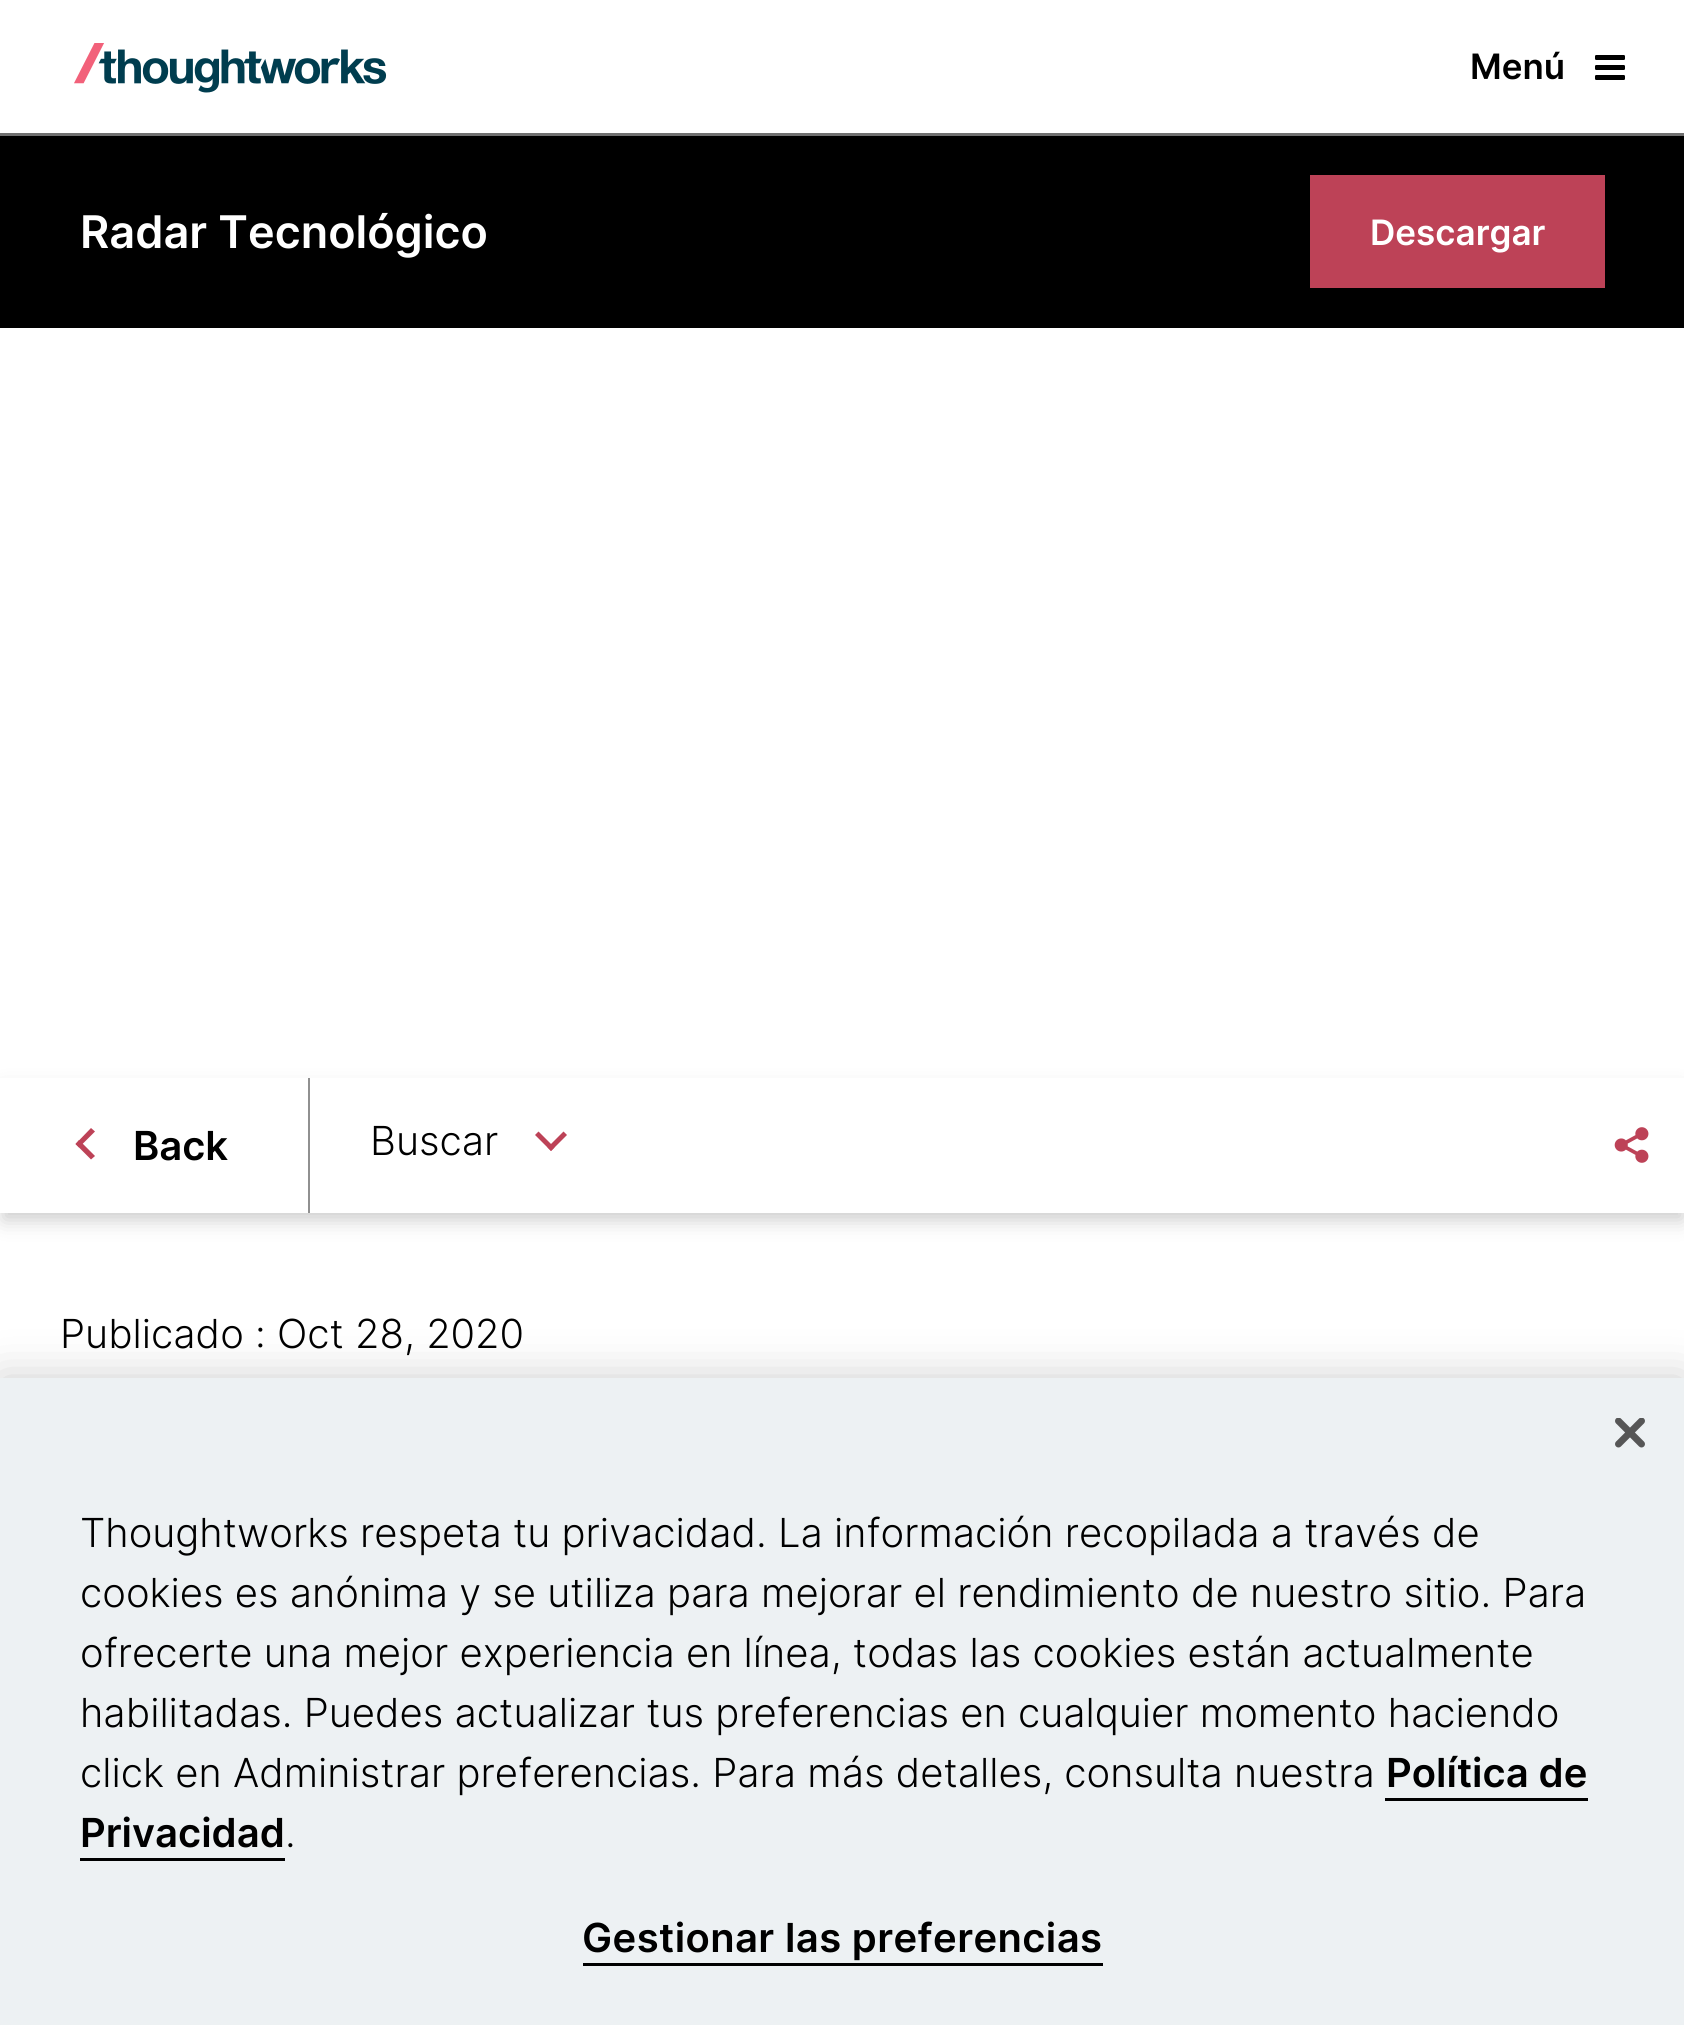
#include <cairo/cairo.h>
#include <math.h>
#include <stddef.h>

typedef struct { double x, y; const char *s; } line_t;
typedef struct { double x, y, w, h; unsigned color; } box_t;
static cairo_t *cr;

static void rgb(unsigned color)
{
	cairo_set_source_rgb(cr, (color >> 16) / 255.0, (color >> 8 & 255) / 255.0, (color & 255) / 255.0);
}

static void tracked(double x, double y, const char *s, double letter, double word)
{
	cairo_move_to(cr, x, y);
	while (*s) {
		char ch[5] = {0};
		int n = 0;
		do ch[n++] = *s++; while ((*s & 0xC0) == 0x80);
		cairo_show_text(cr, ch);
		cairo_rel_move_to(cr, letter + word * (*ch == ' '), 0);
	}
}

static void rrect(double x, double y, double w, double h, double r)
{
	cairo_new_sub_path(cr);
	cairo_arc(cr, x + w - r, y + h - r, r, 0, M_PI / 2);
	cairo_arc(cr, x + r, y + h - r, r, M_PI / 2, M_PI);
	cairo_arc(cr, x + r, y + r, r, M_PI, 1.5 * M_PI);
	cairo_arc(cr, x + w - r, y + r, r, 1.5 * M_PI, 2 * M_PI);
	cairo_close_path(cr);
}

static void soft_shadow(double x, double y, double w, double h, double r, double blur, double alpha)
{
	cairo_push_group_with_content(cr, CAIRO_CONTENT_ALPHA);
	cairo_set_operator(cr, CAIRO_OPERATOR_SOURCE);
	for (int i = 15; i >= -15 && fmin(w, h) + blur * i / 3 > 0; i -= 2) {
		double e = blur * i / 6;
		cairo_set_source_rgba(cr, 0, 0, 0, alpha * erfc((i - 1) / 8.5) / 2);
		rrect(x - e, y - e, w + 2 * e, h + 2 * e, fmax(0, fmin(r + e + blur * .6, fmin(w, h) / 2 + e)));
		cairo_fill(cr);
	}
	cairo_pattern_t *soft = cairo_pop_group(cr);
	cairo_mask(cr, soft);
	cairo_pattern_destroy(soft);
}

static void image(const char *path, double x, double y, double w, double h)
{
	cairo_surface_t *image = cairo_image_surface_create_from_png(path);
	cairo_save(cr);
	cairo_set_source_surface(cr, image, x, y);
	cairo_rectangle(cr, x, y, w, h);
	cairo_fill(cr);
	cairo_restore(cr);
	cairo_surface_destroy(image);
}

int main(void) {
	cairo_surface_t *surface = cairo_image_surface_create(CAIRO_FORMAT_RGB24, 1684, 2025);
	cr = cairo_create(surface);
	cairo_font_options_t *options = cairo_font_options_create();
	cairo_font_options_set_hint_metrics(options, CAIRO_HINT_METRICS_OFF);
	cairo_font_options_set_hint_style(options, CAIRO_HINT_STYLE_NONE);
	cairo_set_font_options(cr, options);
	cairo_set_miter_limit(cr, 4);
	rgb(0xffffff);
	cairo_paint(cr);
	rgb(0x707070);
	cairo_rectangle(cr, 0, 133, 1684, 3);
	cairo_fill(cr);
	image("img/1.png", 74, 43, 313, 50);
	image("img/2.png", 1595, 55, 30, 25);
	rgb(0x000000);
	cairo_rectangle(cr, 0, 136, 1684, 192);
	cairo_fill(cr);
	rgb(0xbd4257);
	cairo_rectangle(cr, 1310, 175, 295, 113);
	cairo_fill(cr);
	rgb(0x000000);
	soft_shadow(3, 1090, 1680, 130, 0, 10, 0.2);
	rgb(0xffffff);
	cairo_rectangle(cr, 0, 1078, 1684, 135);
	cairo_fill(cr);
	rgb(0x909090);
	cairo_rectangle(cr, 308, 1078, 2, 135);
	cairo_fill(cr);
	rgb(0xbd4257);
	cairo_new_path(cr);
	cairo_move_to(cr, 91, 1159.5);
	cairo_line_to(cr, 75.5, 1144);
	cairo_line_to(cr, 79, 1140);
	cairo_line_to(cr, 95, 1156);
	cairo_close_path(cr);
	cairo_fill(cr);
	cairo_new_path(cr);
	cairo_move_to(cr, 79, 1147.5);
	cairo_line_to(cr, 75.5, 1144);
	cairo_line_to(cr, 91, 1128);
	cairo_line_to(cr, 95, 1131.5);
	cairo_close_path(cr);
	cairo_fill(cr);
	cairo_new_path(cr);
	cairo_move_to(cr, 567, 1135);
	cairo_line_to(cr, 551, 1151);
	cairo_line_to(cr, 547.5, 1147.5);
	cairo_line_to(cr, 563.5, 1131.5);
	cairo_close_path(cr);
	cairo_fill(cr);
	cairo_new_path(cr);
	cairo_move_to(cr, 554.5, 1147.5);
	cairo_line_to(cr, 551, 1151);
	cairo_line_to(cr, 535, 1135);
	cairo_line_to(cr, 538.5, 1131.5);
	cairo_close_path(cr);
	cairo_fill(cr);
	image("img/3.png", 1614, 1127, 35, 36);
	rgb(0x000000);
	soft_shadow(0, 1378, 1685, 647, 0, 22.5, 0.2);
	rgb(0xedf1f3);
	cairo_rectangle(cr, 0, 1378, 1684, 647);
	cairo_fill(cr);
	image("img/4.png", 1615, 1418, 30, 30);
	{
		static const box_t items[] = {
			{1385, 1798, 203, 3, 0x000000},
			{80, 1858, 205, 3, 0x000000},
			{583, 1963, 520, 3, 0x000000},
		};
		for (size_t i = 0; i < sizeof items / sizeof *items; i++) {
			rgb(items[i].color);
			cairo_rectangle(cr, items[i].x, items[i].y, items[i].w, items[i].h);
			cairo_fill(cr);
		}
	}
	cairo_select_font_face(cr, "Inter SemiBold", CAIRO_FONT_SLANT_NORMAL, CAIRO_FONT_WEIGHT_NORMAL);
	cairo_set_font_size(cr, 35);
	cairo_move_to(cr, 1470, 79);
	cairo_show_text(cr, "Menú");
	cairo_set_font_size(cr, 45);
	rgb(0xffffff);
	cairo_move_to(cr, 80, 248);
	cairo_show_text(cr, "Radar Tecnológico");
	cairo_set_font_size(cr, 35);
	cairo_move_to(cr, 1370, 245);
	cairo_show_text(cr, "Descargar");
	cairo_set_font_size(cr, 40);
	rgb(0x000000);
	cairo_move_to(cr, 133, 1160);
	cairo_show_text(cr, "Back");
	cairo_select_font_face(cr, "Inter Light", CAIRO_FONT_SLANT_NORMAL, CAIRO_FONT_WEIGHT_NORMAL);
	{
		static const line_t items[] = {
			{370, 1155, "Buscar"},
			{60, 1348, "Publicado : Oct 28, 2020"},
			{80, 1547, "Thoughtworks respeta tu privacidad. La información recopilada a través de"},
			{80, 1607, "cookies es anónima y se utiliza para mejorar el rendimiento de nuestro sitio. Para"},
			{80, 1667, "ofrecerte una mejor experiencia en línea, todas las cookies están actualmente"},
			{80, 1727, "habilitadas. Puedes actualizar tus preferencias en cualquier momento haciendo"},
			{80, 1787, "click en Administrar preferencias. Para más detalles, consulta nuestra"},
		};
		for (size_t i = 0; i < sizeof items / sizeof *items; i++) {
			cairo_move_to(cr, items[i].x, items[i].y);
			cairo_show_text(cr, items[i].s);
		}
	}
	cairo_select_font_face(cr, "Inter SemiBold", CAIRO_FONT_SLANT_NORMAL, CAIRO_FONT_WEIGHT_NORMAL);
	cairo_move_to(cr, 1386, 1787);
	cairo_show_text(cr, "Política de");
	cairo_move_to(cr, 80, 1847);
	cairo_show_text(cr, "Privacidad");
	cairo_select_font_face(cr, "Inter Light", CAIRO_FONT_SLANT_NORMAL, CAIRO_FONT_WEIGHT_NORMAL);
	cairo_move_to(cr, 285, 1847);
	cairo_show_text(cr, ".");
	cairo_select_font_face(cr, "Inter SemiBold", CAIRO_FONT_SLANT_NORMAL, CAIRO_FONT_WEIGHT_NORMAL);
	tracked(582, 1952, "Gestionar las preferencias", 0.4, 0);
	cairo_surface_write_to_png(surface, "page.png");
	cairo_font_options_destroy(options);
	cairo_destroy(cr);
	cairo_surface_destroy(surface);
	return 0;
}
